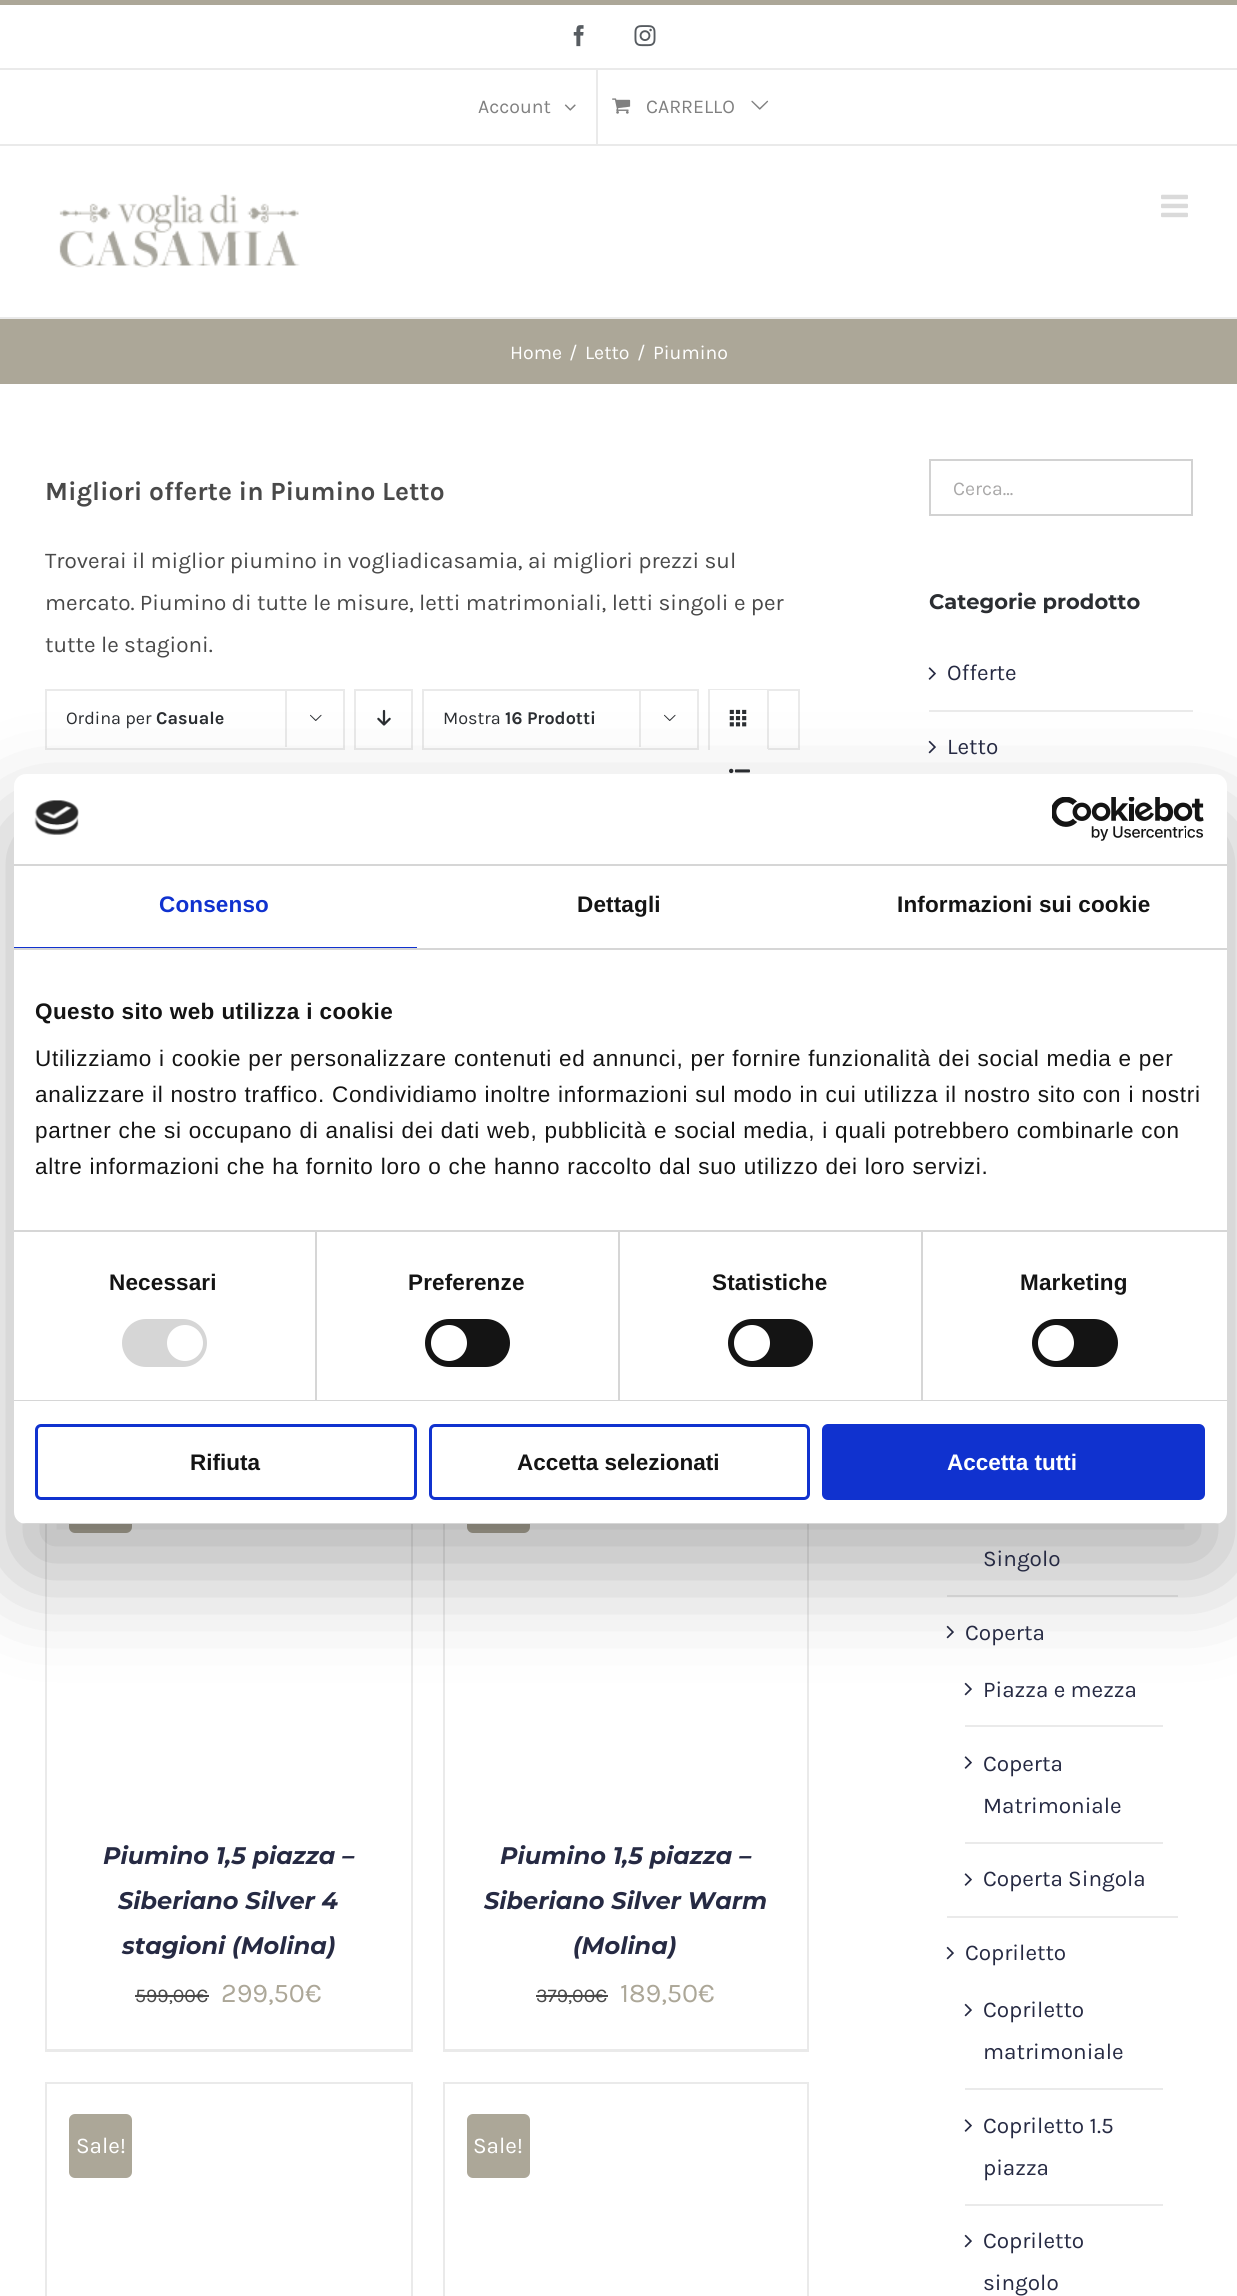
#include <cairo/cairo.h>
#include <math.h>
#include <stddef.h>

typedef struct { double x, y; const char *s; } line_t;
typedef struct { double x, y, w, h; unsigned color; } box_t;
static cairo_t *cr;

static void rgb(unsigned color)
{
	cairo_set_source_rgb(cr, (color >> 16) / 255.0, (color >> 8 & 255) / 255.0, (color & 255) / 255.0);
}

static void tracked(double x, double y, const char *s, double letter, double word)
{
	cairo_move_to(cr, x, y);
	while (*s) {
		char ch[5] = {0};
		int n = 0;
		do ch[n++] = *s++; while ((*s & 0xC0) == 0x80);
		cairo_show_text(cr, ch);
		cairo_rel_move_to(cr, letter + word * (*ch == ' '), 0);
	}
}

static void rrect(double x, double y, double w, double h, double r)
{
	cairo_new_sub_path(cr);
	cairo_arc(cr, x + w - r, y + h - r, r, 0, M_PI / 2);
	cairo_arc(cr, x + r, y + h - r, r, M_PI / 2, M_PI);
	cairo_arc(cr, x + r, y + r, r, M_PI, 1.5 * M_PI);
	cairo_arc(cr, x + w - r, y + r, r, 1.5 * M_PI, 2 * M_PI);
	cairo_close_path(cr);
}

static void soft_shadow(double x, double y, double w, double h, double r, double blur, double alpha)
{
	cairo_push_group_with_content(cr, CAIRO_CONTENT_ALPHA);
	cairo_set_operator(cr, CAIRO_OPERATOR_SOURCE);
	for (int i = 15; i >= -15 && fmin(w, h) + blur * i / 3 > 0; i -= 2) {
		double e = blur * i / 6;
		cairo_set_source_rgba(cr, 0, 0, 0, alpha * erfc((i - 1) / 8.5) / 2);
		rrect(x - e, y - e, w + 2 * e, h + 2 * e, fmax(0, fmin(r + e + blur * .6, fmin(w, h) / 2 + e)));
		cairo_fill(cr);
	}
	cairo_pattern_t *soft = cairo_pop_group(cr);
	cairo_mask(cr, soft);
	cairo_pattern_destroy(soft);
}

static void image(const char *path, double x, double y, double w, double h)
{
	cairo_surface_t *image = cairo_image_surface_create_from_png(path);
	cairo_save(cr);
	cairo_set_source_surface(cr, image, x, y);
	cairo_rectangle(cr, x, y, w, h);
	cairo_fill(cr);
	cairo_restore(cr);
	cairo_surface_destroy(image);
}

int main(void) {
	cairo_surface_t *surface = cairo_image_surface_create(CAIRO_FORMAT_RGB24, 1237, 2296);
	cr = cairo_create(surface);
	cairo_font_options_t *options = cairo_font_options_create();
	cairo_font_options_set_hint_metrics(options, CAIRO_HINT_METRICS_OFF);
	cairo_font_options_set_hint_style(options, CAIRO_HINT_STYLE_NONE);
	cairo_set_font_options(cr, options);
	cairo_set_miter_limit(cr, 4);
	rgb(0xffffff);
	cairo_paint(cr);
	{
		static const box_t items[] = {
			{0, 0, 1237, 5, 0xaca798},
			{0, 144, 1237, 2, 0xeaeaea},
			{0, 68, 1237, 2, 0xeaeaea},
		};
		for (size_t i = 0; i < sizeof items / sizeof *items; i++) {
			rgb(items[i].color);
			cairo_rectangle(cr, items[i].x, items[i].y, items[i].w, items[i].h);
			cairo_fill(cr);
		}
	}
	image("img/1.png", 573, 25, 11, 22);
	image("img/2.png", 634, 25, 22, 22);
	image("img/3.png", 564, 104, 12, 7);
	cairo_rectangle(cr, 596, 69, 2, 75);
	cairo_fill(cr);
	image("img/4.png", 612, 98, 19, 16);
	image("img/5.png", 751, 100, 18, 10);
	cairo_rectangle(cr, 0, 317, 1237, 2);
	cairo_fill(cr);
	image("img/6.png", 59, 194, 241, 74);
	image("img/7.png", 1161, 194, 27, 24);
	rgb(0xaca798);
	cairo_rectangle(cr, 0, 319, 1237, 65);
	cairo_fill(cr);
	cairo_rectangle(cr, 46, 690, 298, 59);
	rgb(0xeaeaea);
	cairo_stroke(cr);
	cairo_rectangle(cr, 285, 689, 2, 58);
	cairo_fill(cr);
	image("img/8.png", 310, 714, 12, 7);
	cairo_rectangle(cr, 355, 690, 57, 59);
	cairo_stroke(cr);
	image("img/9.png", 377, 709, 14, 17);
	cairo_rectangle(cr, 423, 690, 275, 59);
	cairo_stroke(cr);
	cairo_rectangle(cr, 639, 689, 2, 58);
	cairo_fill(cr);
	image("img/8.png", 664, 714, 12, 7);
	cairo_rectangle(cr, 709, 690, 90, 59);
	cairo_stroke(cr);
	rgb(0xffffff);
	cairo_rectangle(cr, 710, 690, 57, 59);
	cairo_fill(cr);
	rgb(0xeaeaea);
	cairo_rectangle(cr, 767, 690, 2, 59);
	cairo_fill(cr);
	image("img/10.png", 729, 709, 18, 18);
	rgb(0xffffff);
	cairo_rectangle(cr, 710, 749, 58, 1);
	cairo_fill(cr);
	image("img/11.png", 729, 768, 21, 6);
	{
		static const box_t items[] = {
			{411, 1524, 2, 528, 0xeaeaea},
			{45, 2049, 368, 3, 0xeaeaea},
			{45, 1524, 2, 528, 0xeaeaea},
		};
		for (size_t i = 0; i < sizeof items / sizeof *items; i++) {
			rgb(items[i].color);
			cairo_rectangle(cr, items[i].x, items[i].y, items[i].w, items[i].h);
			cairo_fill(cr);
		}
	}
	rgb(0xaca798);
	rrect(69, 1470, 63, 63, 6);
	cairo_fill(cr);
	{
		static const box_t items[] = {
			{135, 1995, 62, 2, 0x494949},
			{197, 1995, 12, 2, 0x494949},
			{807, 1524, 2, 528, 0xeaeaea},
			{443, 2049, 366, 3, 0xeaeaea},
			{443, 1524, 2, 528, 0xeaeaea},
		};
		for (size_t i = 0; i < sizeof items / sizeof *items; i++) {
			rgb(items[i].color);
			cairo_rectangle(cr, items[i].x, items[i].y, items[i].w, items[i].h);
			cairo_fill(cr);
		}
	}
	rgb(0xaca798);
	rrect(467, 1470, 63, 63, 6);
	cairo_fill(cr);
	{
		static const box_t items[] = {
			{536, 1995, 60, 2, 0x494949},
			{596, 1995, 12, 2, 0x494949},
			{45, 2082, 368, 2, 0xeaeaea},
			{411, 2082, 2, 214, 0xeaeaea},
			{45, 2082, 2, 214, 0xeaeaea},
		};
		for (size_t i = 0; i < sizeof items / sizeof *items; i++) {
			rgb(items[i].color);
			cairo_rectangle(cr, items[i].x, items[i].y, items[i].w, items[i].h);
			cairo_fill(cr);
		}
	}
	rgb(0xaca798);
	rrect(69, 2114, 63, 64, 6);
	cairo_fill(cr);
	{
		static const box_t items[] = {
			{443, 2082, 366, 2, 0xeaeaea},
			{807, 2082, 2, 214, 0xeaeaea},
			{443, 2082, 2, 214, 0xeaeaea},
		};
		for (size_t i = 0; i < sizeof items / sizeof *items; i++) {
			rgb(items[i].color);
			cairo_rectangle(cr, items[i].x, items[i].y, items[i].w, items[i].h);
			cairo_fill(cr);
		}
	}
	rgb(0xaca798);
	rrect(467, 2114, 63, 64, 6);
	cairo_fill(cr);
	cairo_rectangle(cr, 930, 460, 262, 55);
	rgb(0xd2d2d2);
	cairo_stroke(cr);
	rgb(0xeaeaea);
	cairo_rectangle(cr, 929, 710, 264, 2);
	cairo_fill(cr);
	image("img/12.png", 928, 667, 8, 13);
	image("img/13.png", 928, 740, 8, 14);
	cairo_rectangle(cr, 947, 1595, 231, 2);
	cairo_fill(cr);
	cairo_rectangle(cr, 947, 1916, 231, 2);
	cairo_fill(cr);
	image("img/13.png", 946, 1625, 8, 14);
	cairo_rectangle(cr, 965, 1725, 198, 2);
	cairo_fill(cr);
	image("img/13.png", 964, 1682, 8, 14);
	cairo_rectangle(cr, 965, 1842, 198, 2);
	cairo_fill(cr);
	image("img/12.png", 964, 1756, 8, 13);
	image("img/12.png", 964, 1873, 8, 13);
	image("img/13.png", 946, 1946, 8, 14);
	cairo_rectangle(cr, 965, 2088, 198, 2);
	cairo_fill(cr);
	image("img/13.png", 964, 2003, 8, 14);
	cairo_rectangle(cr, 965, 2204, 198, 2);
	cairo_fill(cr);
	image("img/12.png", 964, 2119, 8, 13);
	image("img/13.png", 964, 2234, 8, 14);
	rgb(0x000000);
	soft_shadow(14, 822, 1213, 750, 12, 51, 0.3);
	rgb(0xffffff);
	rrect(14, 774, 1213, 750, 12);
	cairo_fill(cr);
	rgb(0xd6d6d6);
	cairo_rectangle(cr, 14, 864, 1213, 2);
	cairo_fill(cr);
	image("img/14.png", 34, 800, 45, 35);
	image("img/15.png", 1052, 797, 152, 44);
	{
		static const box_t items[] = {
			{14, 948, 1213, 2, 0xd6d6d6},
			{14, 947, 403, 1, 0x1032cf},
			{14, 1230, 1213, 2, 0xd6d6d6},
			{14, 1400, 1213, 1, 0xd6d6d6},
			{315, 1232, 2, 168, 0xd6d6d6},
		};
		for (size_t i = 0; i < sizeof items / sizeof *items; i++) {
			rgb(items[i].color);
			cairo_rectangle(cr, items[i].x, items[i].y, items[i].w, items[i].h);
			cairo_fill(cr);
		}
	}
	rrect(122, 1319, 85, 48, 24);
	cairo_fill(cr);
	rgb(0xffffff);
	cairo_arc(cr, 185, 1343, 18, 0, 2 * M_PI);
	cairo_fill(cr);
	rgb(0xd6d6d6);
	cairo_rectangle(cr, 618, 1232, 2, 168);
	cairo_fill(cr);
	rgb(0x141414);
	rrect(425, 1319, 85, 48, 24);
	cairo_fill(cr);
	rgb(0xffffff);
	cairo_arc(cr, 449, 1343, 18, 0, 2 * M_PI);
	cairo_fill(cr);
	rgb(0xd6d6d6);
	cairo_rectangle(cr, 921, 1232, 2, 168);
	cairo_fill(cr);
	rgb(0x141414);
	rrect(728, 1319, 85, 48, 24);
	cairo_fill(cr);
	rgb(0xffffff);
	cairo_arc(cr, 752, 1343, 18, 0, 2 * M_PI);
	cairo_fill(cr);
	rgb(0x141414);
	rrect(1032, 1319, 86, 48, 24);
	cairo_fill(cr);
	rgb(0xffffff);
	cairo_arc(cr, 1056, 1343, 18, 0, 2 * M_PI);
	cairo_fill(cr);
	cairo_save(cr);
	rrect(14, 774, 1213, 750, 12);
	cairo_clip(cr);
	rgb(0xd6d6d6);
	cairo_rectangle(cr, 14, 1523, 1213, 1);
	cairo_fill(cr);
	cairo_restore(cr);
	rrect(36.5, 1425.5, 379, 73, 4.5);
	rgb(0x1032cf);
	cairo_set_line_width(cr, 3);
	cairo_stroke(cr);
	rrect(430.5, 1425.5, 378, 73, 4.5);
	cairo_stroke(cr);
	rrect(823.5, 1425.5, 380, 73, 4.5);
	cairo_fill_preserve(cr);
	cairo_stroke(cr);
	cairo_select_font_face(cr, "Karla", CAIRO_FONT_SLANT_NORMAL, CAIRO_FONT_WEIGHT_NORMAL);
	cairo_set_font_size(cr, 19.5);
	rgb(0x808080);
	cairo_move_to(cr, 478, 113);
	cairo_show_text(cr, "Account");
	cairo_move_to(cr, 646, 113);
	cairo_show_text(cr, "CARRELLO");
	rgb(0xffffff);
	{
		static const line_t items[] = {
			{510, 359, "Home"},
			{569, 359, "/"},
			{585, 359, "Letto"},
			{637, 359, "/"},
			{653, 359, "Piumino"},
		};
		for (size_t i = 0; i < sizeof items / sizeof *items; i++) {
			cairo_move_to(cr, items[i].x, items[i].y);
			cairo_show_text(cr, items[i].s);
		}
	}
	cairo_select_font_face(cr, "Karla", CAIRO_FONT_SLANT_NORMAL, CAIRO_FONT_WEIGHT_BOLD);
	cairo_set_font_size(cr, 26.3);
	rgb(0x494949);
	cairo_move_to(cr, 45, 500);
	cairo_show_text(cr, "Migliori offerte in Piumino Letto");
	cairo_select_font_face(cr, "Karla", CAIRO_FONT_SLANT_NORMAL, CAIRO_FONT_WEIGHT_NORMAL);
	cairo_set_font_size(cr, 22.5);
	{
		static const line_t items[] = {
			{45, 568, "Troverai il miglior piumino in vogliadicasamia, ai migliori prezzi sul"},
			{45, 610, "mercato. Piumino di tutte le misure, letti matrimoniali, letti singoli e per"},
			{45, 652, "tutte le stagioni."},
		};
		for (size_t i = 0; i < sizeof items / sizeof *items; i++) {
			cairo_move_to(cr, items[i].x, items[i].y);
			cairo_show_text(cr, items[i].s);
		}
	}
	cairo_set_font_size(cr, 18);
	rgb(0x2b2e32);
	cairo_move_to(cr, 66, 724);
	cairo_show_text(cr, "Ordina per");
	cairo_select_font_face(cr, "Karla", CAIRO_FONT_SLANT_NORMAL, CAIRO_FONT_WEIGHT_BOLD);
	cairo_move_to(cr, 156, 724);
	cairo_show_text(cr, "Casuale");
	cairo_select_font_face(cr, "Karla", CAIRO_FONT_SLANT_NORMAL, CAIRO_FONT_WEIGHT_NORMAL);
	cairo_move_to(cr, 443, 724);
	cairo_show_text(cr, "Mostra");
	cairo_select_font_face(cr, "Karla", CAIRO_FONT_SLANT_NORMAL, CAIRO_FONT_WEIGHT_BOLD);
	cairo_move_to(cr, 505, 724);
	cairo_show_text(cr, "16 Prodotti");
	cairo_select_font_face(cr, "Montserrat", CAIRO_FONT_SLANT_ITALIC, CAIRO_FONT_WEIGHT_BOLD);
	cairo_set_font_size(cr, 24);
	rgb(0x262a43);
	{
		static const line_t items[] = {
			{103, 1864, "Piumino 1,5 piazza –"},
			{118, 1909, "Siberiano Silver 4"},
			{122, 1954, "stagioni (Molina)"},
		};
		for (size_t i = 0; i < sizeof items / sizeof *items; i++) {
			cairo_move_to(cr, items[i].x, items[i].y);
			cairo_show_text(cr, items[i].s);
		}
	}
	cairo_select_font_face(cr, "Karla", CAIRO_FONT_SLANT_NORMAL, CAIRO_FONT_WEIGHT_NORMAL);
	cairo_set_font_size(cr, 19.5);
	rgb(0x494949);
	cairo_move_to(cr, 135, 2002);
	cairo_show_text(cr, "599,00");
	cairo_move_to(cr, 196, 2002);
	cairo_show_text(cr, "€");
	cairo_set_font_size(cr, 27);
	rgb(0xaca798);
	cairo_move_to(cr, 221, 2002);
	cairo_show_text(cr, "299,50€");
	cairo_select_font_face(cr, "Montserrat", CAIRO_FONT_SLANT_ITALIC, CAIRO_FONT_WEIGHT_BOLD);
	cairo_set_font_size(cr, 24);
	rgb(0x262a43);
	{
		static const line_t items[] = {
			{500, 1864, "Piumino 1,5 piazza –"},
			{484, 1909, "Siberiano Silver Warm"},
			{573, 1954, "(Molina)"},
		};
		for (size_t i = 0; i < sizeof items / sizeof *items; i++) {
			cairo_move_to(cr, items[i].x, items[i].y);
			cairo_show_text(cr, items[i].s);
		}
	}
	cairo_select_font_face(cr, "Karla", CAIRO_FONT_SLANT_NORMAL, CAIRO_FONT_WEIGHT_NORMAL);
	cairo_set_font_size(cr, 19.5);
	rgb(0x494949);
	cairo_move_to(cr, 536, 2002);
	cairo_show_text(cr, "379,00");
	cairo_move_to(cr, 595, 2002);
	cairo_show_text(cr, "€");
	cairo_set_font_size(cr, 27);
	rgb(0xaca798);
	cairo_move_to(cr, 620, 2002);
	cairo_show_text(cr, "189,50€");
	cairo_set_font_size(cr, 22.5);
	rgb(0xffffff);
	cairo_move_to(cr, 76, 2153);
	cairo_show_text(cr, "Sale!");
	cairo_move_to(cr, 473, 2153);
	cairo_show_text(cr, "Sale!");
	cairo_set_font_size(cr, 19.5);
	rgb(0xaaa9a9);
	cairo_move_to(cr, 953, 495);
	cairo_show_text(cr, "Cerca...");
	cairo_select_font_face(cr, "Montserrat", CAIRO_FONT_SLANT_NORMAL, CAIRO_FONT_WEIGHT_BOLD);
	cairo_set_font_size(cr, 21);
	rgb(0x2b2e32);
	cairo_move_to(cr, 929, 609);
	cairo_show_text(cr, "Categorie prodotto");
	cairo_select_font_face(cr, "Karla", CAIRO_FONT_SLANT_NORMAL, CAIRO_FONT_WEIGHT_NORMAL);
	cairo_set_font_size(cr, 22.5);
	rgb(0x262a43);
	{
		static const line_t items[] = {
			{947, 680, "Offerte"},
			{947, 754, "Letto"},
			{983, 1566, "Singolo"},
			{965, 1640, "Coperta"},
			{983, 1697, "Piazza e mezza"},
			{983, 1771, "Coperta"},
			{983, 1813, "Matrimoniale"},
			{983, 1886, "Coperta Singola"},
			{965, 1960, "Copriletto"},
			{983, 2017, "Copriletto"},
			{983, 2059, "matrimoniale"},
			{983, 2133, "Copriletto 1.5"},
			{983, 2175, "piazza"},
			{983, 2248, "Copriletto"},
			{983, 2290, "singolo"},
		};
		for (size_t i = 0; i < sizeof items / sizeof *items; i++) {
			cairo_move_to(cr, items[i].x, items[i].y);
			cairo_show_text(cr, items[i].s);
		}
	}
	cairo_select_font_face(cr, "Liberation Sans", CAIRO_FONT_SLANT_NORMAL, CAIRO_FONT_WEIGHT_BOLD);
	rgb(0x1032cf);
	tracked(159, 912, "Consenso", 0.15, 0);
	rgb(0x141414);
	tracked(577, 912, "Dettagli", 0.15, 0);
	tracked(897, 912, "Informazioni sui cookie", 0.15, 0);
	tracked(35, 1019, "Questo sito web utilizza i cookie", 0.4, 0);
	cairo_select_font_face(cr, "Liberation Sans", CAIRO_FONT_SLANT_NORMAL, CAIRO_FONT_WEIGHT_NORMAL);
	{
		static const line_t items[] = {
			{35, 1066, "Utilizziamo i cookie per personalizzare contenuti ed annunci, per fornire funzionalità dei social media e per"},
			{35, 1102, "analizzare il nostro traffico. Condividiamo inoltre informazioni sul modo in cui utilizza il nostro sito con i nostri"},
			{35, 1138, "partner che si occupano di analisi dei dati web, pubblicità e social media, i quali potrebbero combinarle con"},
			{35, 1174, "altre informazioni che ha fornito loro o che hanno raccolto dal suo utilizzo dei loro servizi."},
		};
		for (size_t i = 0; i < sizeof items / sizeof *items; i++) {
			tracked(items[i].x, items[i].y, items[i].s, 0.75, 0);
		}
	}
	cairo_select_font_face(cr, "Liberation Sans", CAIRO_FONT_SLANT_NORMAL, CAIRO_FONT_WEIGHT_BOLD);
	{
		static const line_t items[] = {
			{109, 1290, "Necessari"},
			{408, 1290, "Preferenze"},
			{712, 1290, "Statistiche"},
			{1020, 1290, "Marketing"},
		};
		for (size_t i = 0; i < sizeof items / sizeof *items; i++) {
			tracked(items[i].x, items[i].y, items[i].s, 0.15, 0);
		}
	}
	cairo_move_to(cr, 190, 1470);
	cairo_show_text(cr, "Rifiuta");
	cairo_move_to(cr, 517, 1470);
	cairo_show_text(cr, "Accetta selezionati");
	rgb(0xffffff);
	cairo_move_to(cr, 947, 1470);
	cairo_show_text(cr, "Accetta tutti");
	cairo_surface_write_to_png(surface, "page.png");
	cairo_font_options_destroy(options);
	cairo_destroy(cr);
	cairo_surface_destroy(surface);
	return 0;
}
